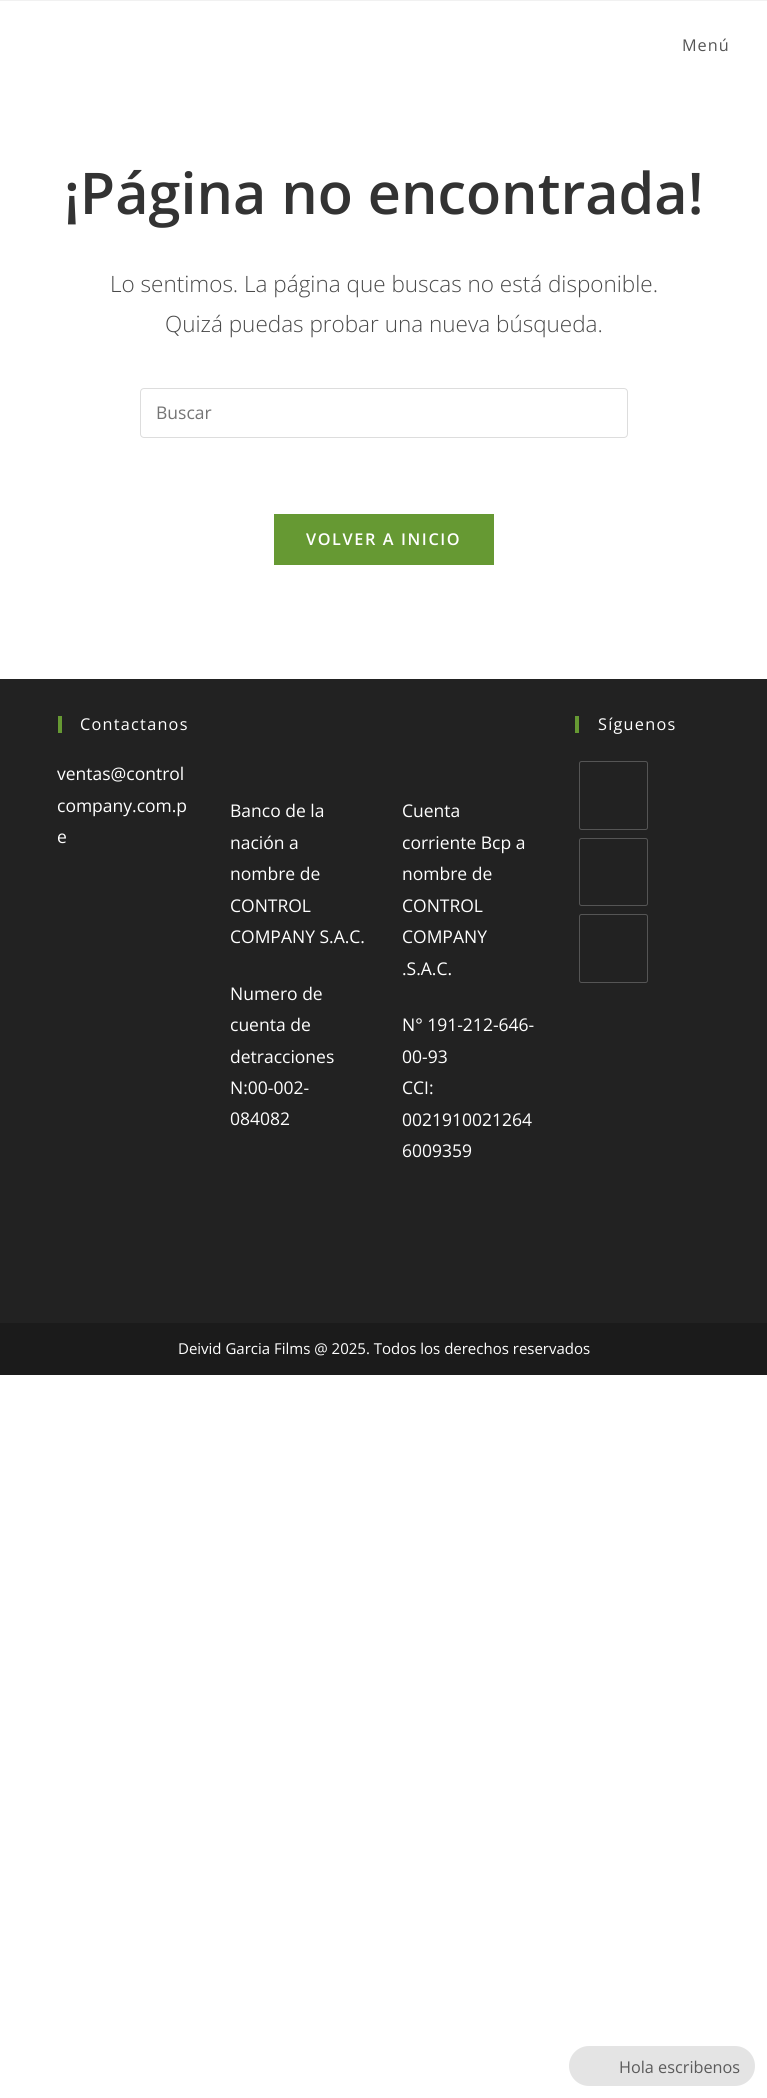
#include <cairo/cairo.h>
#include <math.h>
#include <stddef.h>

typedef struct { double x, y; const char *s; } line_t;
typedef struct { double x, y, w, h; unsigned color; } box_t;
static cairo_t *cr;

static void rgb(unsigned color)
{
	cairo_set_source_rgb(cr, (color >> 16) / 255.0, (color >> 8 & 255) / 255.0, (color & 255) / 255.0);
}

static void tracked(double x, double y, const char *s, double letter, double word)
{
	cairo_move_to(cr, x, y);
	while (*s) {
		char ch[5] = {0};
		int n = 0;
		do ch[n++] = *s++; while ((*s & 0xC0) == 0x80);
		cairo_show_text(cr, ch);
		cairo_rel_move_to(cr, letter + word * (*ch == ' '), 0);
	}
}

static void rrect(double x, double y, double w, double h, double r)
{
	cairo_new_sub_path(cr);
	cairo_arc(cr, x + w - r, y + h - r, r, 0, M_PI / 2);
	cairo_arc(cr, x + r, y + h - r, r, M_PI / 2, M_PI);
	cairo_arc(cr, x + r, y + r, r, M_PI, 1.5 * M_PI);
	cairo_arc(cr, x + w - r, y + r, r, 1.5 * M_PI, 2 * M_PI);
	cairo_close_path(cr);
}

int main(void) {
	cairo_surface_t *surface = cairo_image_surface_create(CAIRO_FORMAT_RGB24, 767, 2098);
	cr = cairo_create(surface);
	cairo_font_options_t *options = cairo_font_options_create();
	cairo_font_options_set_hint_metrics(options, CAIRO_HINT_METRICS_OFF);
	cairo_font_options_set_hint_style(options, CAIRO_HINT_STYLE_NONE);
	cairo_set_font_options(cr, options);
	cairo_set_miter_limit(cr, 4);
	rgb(0xffffff);
	cairo_paint(cr);
	rgb(0xf1f1f1);
	cairo_rectangle(cr, 0, 0, 767, 1);
	cairo_fill(cr);
	rrect(140.5, 388.5, 487, 49, 3.5);
	rgb(0xdddddd);
	cairo_set_line_width(cr, 1);
	cairo_stroke(cr);
	{
		static const box_t items[] = {
			{274, 514, 220, 51, 0x669933},
			{0, 679, 767, 644, 0x222222},
			{58, 716, 4, 17, 0x669933},
			{575, 716, 4, 17, 0x669933},
		};
		for (size_t i = 0; i < sizeof items / sizeof *items; i++) {
			rgb(items[i].color);
			cairo_rectangle(cr, items[i].x, items[i].y, items[i].w, items[i].h);
			cairo_fill(cr);
		}
	}
	rrect(579.5, 761.5, 68, 68, 2);
	rgb(0x555555);
	cairo_stroke(cr);
	rrect(579.5, 838.5, 68, 67, 2);
	cairo_stroke(cr);
	rrect(579.5, 914.5, 68, 68, 2);
	cairo_stroke(cr);
	rgb(0x1b1b1b);
	cairo_rectangle(cr, 0, 1323, 767, 52);
	cairo_fill(cr);
	rgb(0xe4e4e4);
	rrect(569, 2046, 186, 40, 20);
	cairo_fill(cr);
	cairo_select_font_face(cr, "Open Sans", CAIRO_FONT_SLANT_NORMAL, CAIRO_FONT_WEIGHT_NORMAL);
	cairo_set_font_size(cr, 16.25);
	rgb(0x555555);
	tracked(682, 51, "Menú", 1, 0);
	cairo_select_font_face(cr, "Open Sans SemiBold", CAIRO_FONT_SLANT_NORMAL, CAIRO_FONT_WEIGHT_NORMAL);
	cairo_set_font_size(cr, 57.5);
	rgb(0x333333);
	cairo_move_to(cr, 64, 214);
	cairo_show_text(cr, "¡Página no encontrada!");
	cairo_select_font_face(cr, "Open Sans Light", CAIRO_FONT_SLANT_NORMAL, CAIRO_FONT_WEIGHT_NORMAL);
	cairo_set_font_size(cr, 22.5);
	rgb(0x4a4a4a);
	cairo_move_to(cr, 110, 292);
	cairo_show_text(cr, "Lo sentimos. La página que buscas no está disponible.");
	cairo_move_to(cr, 165, 332);
	cairo_show_text(cr, "Quizá puedas probar una nueva búsqueda.");
	cairo_select_font_face(cr, "Open Sans", CAIRO_FONT_SLANT_NORMAL, CAIRO_FONT_WEIGHT_NORMAL);
	cairo_set_font_size(cr, 17.5);
	rgb(0x757575);
	cairo_move_to(cr, 156, 419);
	cairo_show_text(cr, "Buscar");
	cairo_select_font_face(cr, "Open Sans SemiBold", CAIRO_FONT_SLANT_NORMAL, CAIRO_FONT_WEIGHT_NORMAL);
	cairo_set_font_size(cr, 16.25);
	rgb(0xffffff);
	tracked(306, 545, "VOLVER A INICIO", 1.6, 0);
	cairo_select_font_face(cr, "Open Sans", CAIRO_FONT_SLANT_NORMAL, CAIRO_FONT_WEIGHT_NORMAL);
	tracked(80, 730, "Contactanos", 1.25, 0);
	cairo_set_font_size(cr, 17.5);
	{
		static const line_t items[] = {
			{57, 780, "ventas@control"},
			{57, 812, "company.com.p"},
			{57, 843, "e"},
		};
		for (size_t i = 0; i < sizeof items / sizeof *items; i++) {
			cairo_move_to(cr, items[i].x, items[i].y);
			cairo_show_text(cr, items[i].s);
		}
	}
	cairo_set_font_size(cr, 16.25);
	tracked(598, 730, "Síguenos", 1.25, 0);
	cairo_set_font_size(cr, 17.5);
	{
		static const line_t items[] = {
			{230, 817, "Banco de la"},
			{230, 849, "nación a"},
			{230, 880, "nombre de"},
			{230, 912, "CONTROL"},
			{230, 943, "COMPANY S.A.C."},
			{230, 1000, "Numero de"},
			{230, 1031, "cuenta de"},
			{230, 1063, "detracciones"},
			{230, 1094, "N:00-002-"},
			{230, 1125, "084082"},
			{402, 817, "Cuenta"},
			{402, 849, "corriente Bcp a"},
			{402, 880, "nombre de"},
			{402, 912, "CONTROL"},
			{402, 943, "COMPANY"},
			{402, 975, ".S.A.C."},
			{402, 1031, "N° 191-212-646-"},
			{402, 1063, "00-93"},
			{402, 1094, "CCI:"},
			{402, 1126, "0021910021264"},
			{402, 1157, "6009359"},
		};
		for (size_t i = 0; i < sizeof items / sizeof *items; i++) {
			cairo_move_to(cr, items[i].x, items[i].y);
			cairo_show_text(cr, items[i].s);
		}
	}
	cairo_set_font_size(cr, 15);
	cairo_move_to(cr, 178, 1354);
	cairo_show_text(cr, "Deivid Garcia Films @ 2025. Todos los derechos reservados");
	cairo_set_font_size(cr, 16.25);
	rgb(0x5b5b5b);
	cairo_move_to(cr, 619, 2073);
	cairo_show_text(cr, "Hola escribenos");
	cairo_surface_write_to_png(surface, "page.png");
	cairo_font_options_destroy(options);
	cairo_destroy(cr);
	cairo_surface_destroy(surface);
	return 0;
}
